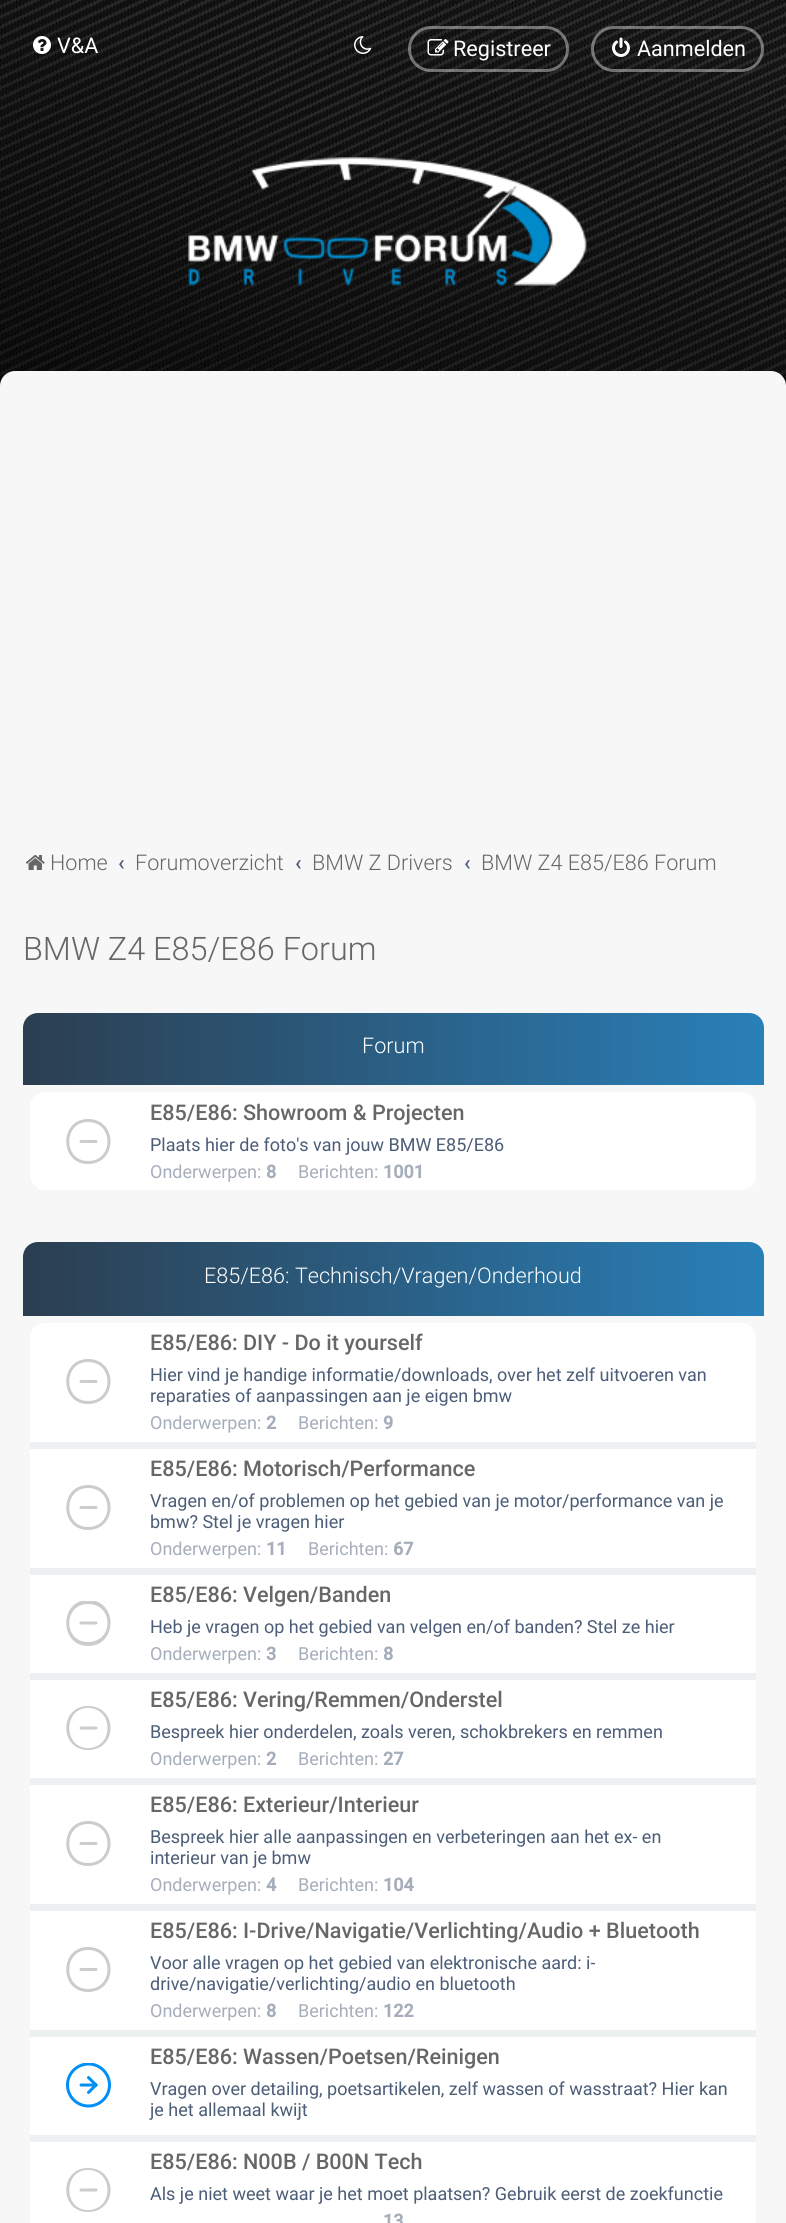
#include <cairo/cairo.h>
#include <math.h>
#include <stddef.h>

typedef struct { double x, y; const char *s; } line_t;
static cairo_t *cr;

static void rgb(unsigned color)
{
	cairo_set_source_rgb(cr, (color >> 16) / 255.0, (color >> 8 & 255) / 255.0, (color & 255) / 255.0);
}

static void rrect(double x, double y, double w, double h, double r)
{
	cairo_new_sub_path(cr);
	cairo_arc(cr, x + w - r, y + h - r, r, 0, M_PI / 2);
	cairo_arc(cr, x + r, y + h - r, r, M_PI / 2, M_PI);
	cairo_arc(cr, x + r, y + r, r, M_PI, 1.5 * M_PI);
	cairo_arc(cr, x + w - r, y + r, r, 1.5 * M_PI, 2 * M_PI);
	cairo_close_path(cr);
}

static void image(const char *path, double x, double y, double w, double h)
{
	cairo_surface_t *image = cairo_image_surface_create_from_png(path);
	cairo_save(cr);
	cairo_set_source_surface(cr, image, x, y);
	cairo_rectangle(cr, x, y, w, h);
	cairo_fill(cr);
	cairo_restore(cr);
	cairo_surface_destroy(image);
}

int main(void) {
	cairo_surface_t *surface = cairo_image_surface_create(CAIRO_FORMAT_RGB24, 786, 2223);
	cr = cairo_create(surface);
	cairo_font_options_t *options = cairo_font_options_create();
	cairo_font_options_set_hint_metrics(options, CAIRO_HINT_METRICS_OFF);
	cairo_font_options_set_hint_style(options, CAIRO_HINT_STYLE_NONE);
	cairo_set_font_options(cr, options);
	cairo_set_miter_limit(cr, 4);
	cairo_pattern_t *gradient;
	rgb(0xffffff);
	cairo_paint(cr);
	image("img/1.png", 0, 0, 786, 386);
	image("img/2.png", 188, 157, 399, 129);
	image("img/3.png", 33, 36, 18, 18);
	image("img/4.png", 354, 36, 18, 18);
	rrect(409.5, 27.5, 158, 43, 21.5);
	cairo_set_source_rgba(cr, 1, 1, 1, 0.4);
	cairo_set_line_width(cr, 3);
	cairo_stroke(cr);
	image("img/5.png", 427, 39, 22, 17);
	rrect(592.5, 27.5, 170, 43, 21.5);
	cairo_stroke(cr);
	image("img/6.png", 612, 37, 18, 20);
	rgb(0xf7f7f7);
	rrect(0, 371, 786, 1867, 15);
	cairo_fill(cr);
	image("img/7.png", 25, 855, 20, 15);
	gradient = cairo_pattern_create_linear(23, 1049, 764, 1049);
	cairo_pattern_add_color_stop_rgba(gradient, 0, 0.173, 0.243, 0.314, 1);
	cairo_pattern_add_color_stop_rgba(gradient, 1, 0.161, 0.502, 0.725, 1);
	cairo_set_source(cr, gradient);
	cairo_pattern_destroy(gradient);
	cairo_new_path(cr);
	cairo_move_to(cr, 38, 1013);
	cairo_line_to(cr, 749, 1013);
	cairo_curve_to(cr, 757.5, 1013, 764, 1019.5, 764, 1028);
	cairo_line_to(cr, 764, 1085);
	cairo_line_to(cr, 23, 1085);
	cairo_line_to(cr, 23, 1028);
	cairo_curve_to(cr, 23, 1019.5, 29.5, 1013, 38, 1013);
	cairo_close_path(cr);
	cairo_fill(cr);
	rgb(0xffffff);
	rrect(30, 1092, 726, 98, 15);
	cairo_fill(cr);
	rgb(0xcccccc);
	cairo_new_path(cr);
	cairo_move_to(cr, 88, 1122);
	cairo_curve_to(cr, 114, 1122, 114, 1161, 88, 1161);
	cairo_curve_to(cr, 63, 1161, 63, 1122, 88, 1122);
	cairo_move_to(cr, 88, 1119);
	cairo_curve_to(cr, 59, 1119, 59, 1164, 88, 1164);
	cairo_curve_to(cr, 118, 1164, 118, 1119, 88, 1119);
	cairo_close_path(cr);
	cairo_fill(cr);
	cairo_new_path(cr);
	cairo_move_to(cr, 81, 1141.5);
	cairo_line_to(cr, 96, 1141.5);
	cairo_set_line_cap(cr, CAIRO_LINE_CAP_ROUND);
	cairo_stroke(cr);
	gradient = cairo_pattern_create_linear(23, 1279, 764, 1279);
	cairo_pattern_add_color_stop_rgba(gradient, 0, 0.173, 0.243, 0.314, 1);
	cairo_pattern_add_color_stop_rgba(gradient, 1, 0.161, 0.502, 0.725, 1);
	cairo_set_source(cr, gradient);
	cairo_pattern_destroy(gradient);
	cairo_new_path(cr);
	cairo_move_to(cr, 38, 1242);
	cairo_line_to(cr, 749, 1242);
	cairo_curve_to(cr, 757.5, 1242, 764, 1248.5, 764, 1257);
	cairo_line_to(cr, 764, 1316);
	cairo_line_to(cr, 23, 1316);
	cairo_line_to(cr, 23, 1257);
	cairo_curve_to(cr, 23, 1248.5, 29.5, 1242, 38, 1242);
	cairo_close_path(cr);
	cairo_fill(cr);
	rgb(0xffffff);
	cairo_new_path(cr);
	cairo_move_to(cr, 45, 1323);
	cairo_line_to(cr, 741, 1323);
	cairo_curve_to(cr, 749.5, 1323, 756, 1329.5, 756, 1338);
	cairo_line_to(cr, 756, 1449);
	cairo_line_to(cr, 30, 1449);
	cairo_line_to(cr, 30, 1338);
	cairo_curve_to(cr, 30, 1329.5, 36.5, 1323, 45, 1323);
	cairo_close_path(cr);
	cairo_fill(cr);
	rgb(0xecf0f1);
	cairo_rectangle(cr, 30, 1442, 726, 7);
	cairo_fill(cr);
	rgb(0xcccccc);
	cairo_new_path(cr);
	cairo_move_to(cr, 88, 1362);
	cairo_curve_to(cr, 114, 1362, 114, 1401, 88, 1401);
	cairo_curve_to(cr, 63, 1401, 63, 1362, 88, 1362);
	cairo_move_to(cr, 88, 1359);
	cairo_curve_to(cr, 59, 1359, 59, 1404, 88, 1404);
	cairo_curve_to(cr, 118, 1404, 118, 1359, 88, 1359);
	cairo_close_path(cr);
	cairo_fill(cr);
	cairo_new_path(cr);
	cairo_move_to(cr, 81, 1381.5);
	cairo_line_to(cr, 96, 1381.5);
	cairo_stroke(cr);
	rgb(0xffffff);
	cairo_rectangle(cr, 30, 1449, 726, 119);
	cairo_fill(cr);
	rgb(0xecf0f1);
	cairo_rectangle(cr, 30, 1568, 726, 7);
	cairo_fill(cr);
	rgb(0xcccccc);
	cairo_new_path(cr);
	cairo_move_to(cr, 88, 1488);
	cairo_curve_to(cr, 114, 1488, 114, 1527, 88, 1527);
	cairo_curve_to(cr, 63, 1527, 63, 1488, 88, 1488);
	cairo_move_to(cr, 88, 1485);
	cairo_curve_to(cr, 59, 1485, 59, 1530, 88, 1530);
	cairo_curve_to(cr, 118, 1530, 118, 1485, 88, 1485);
	cairo_close_path(cr);
	cairo_fill(cr);
	cairo_new_path(cr);
	cairo_move_to(cr, 81, 1507.5);
	cairo_line_to(cr, 96, 1507.5);
	cairo_stroke(cr);
	rgb(0xffffff);
	cairo_rectangle(cr, 30, 1575, 726, 98);
	cairo_fill(cr);
	rgb(0xecf0f1);
	cairo_rectangle(cr, 30, 1673, 726, 7);
	cairo_fill(cr);
	cairo_save(cr);
	cairo_rectangle(cr, 66, 1601, 45, 45);
	cairo_clip(cr);
	rgb(0xcccccc);
	cairo_new_path(cr);
	cairo_move_to(cr, 88, 1604);
	cairo_curve_to(cr, 114, 1604, 114, 1642, 88, 1642);
	cairo_curve_to(cr, 63, 1642, 63, 1604, 88, 1604);
	cairo_move_to(cr, 88, 1600);
	cairo_curve_to(cr, 59, 1600, 59, 1646, 88, 1646);
	cairo_curve_to(cr, 118, 1646, 118, 1600, 88, 1600);
	cairo_close_path(cr);
	cairo_fill(cr);
	cairo_restore(cr);
	cairo_new_path(cr);
	cairo_move_to(cr, 81, 1623);
	cairo_line_to(cr, 96, 1623);
	rgb(0xcccccc);
	cairo_stroke(cr);
	rgb(0xffffff);
	cairo_rectangle(cr, 30, 1680, 726, 98);
	cairo_fill(cr);
	rgb(0xecf0f1);
	cairo_rectangle(cr, 30, 1778, 726, 7);
	cairo_fill(cr);
	rgb(0xcccccc);
	cairo_new_path(cr);
	cairo_move_to(cr, 88, 1708);
	cairo_curve_to(cr, 114, 1708, 114, 1748, 88, 1748);
	cairo_curve_to(cr, 63, 1748, 63, 1708, 88, 1708);
	cairo_move_to(cr, 88, 1706);
	cairo_curve_to(cr, 59, 1706, 59, 1750, 88, 1750);
	cairo_curve_to(cr, 118, 1750, 118, 1706, 88, 1706);
	cairo_close_path(cr);
	cairo_fill(cr);
	cairo_new_path(cr);
	cairo_move_to(cr, 81, 1728);
	cairo_line_to(cr, 96, 1728);
	cairo_stroke(cr);
	rgb(0xffffff);
	cairo_rectangle(cr, 30, 1785, 726, 119);
	cairo_fill(cr);
	rgb(0xecf0f1);
	cairo_rectangle(cr, 30, 1904, 726, 7);
	cairo_fill(cr);
	rgb(0xcccccc);
	cairo_new_path(cr);
	cairo_move_to(cr, 88, 1824);
	cairo_curve_to(cr, 114, 1824, 114, 1863, 88, 1863);
	cairo_curve_to(cr, 63, 1863, 63, 1824, 88, 1824);
	cairo_move_to(cr, 88, 1821);
	cairo_curve_to(cr, 59, 1821, 59, 1866, 88, 1866);
	cairo_curve_to(cr, 118, 1866, 118, 1821, 88, 1821);
	cairo_close_path(cr);
	cairo_fill(cr);
	cairo_new_path(cr);
	cairo_move_to(cr, 81, 1843.5);
	cairo_line_to(cr, 96, 1843.5);
	cairo_stroke(cr);
	rgb(0xffffff);
	cairo_rectangle(cr, 30, 1911, 726, 119);
	cairo_fill(cr);
	rgb(0xecf0f1);
	cairo_rectangle(cr, 30, 2030, 726, 7);
	cairo_fill(cr);
	rgb(0xcccccc);
	cairo_new_path(cr);
	cairo_move_to(cr, 88, 1950);
	cairo_curve_to(cr, 114, 1950, 114, 1989, 88, 1989);
	cairo_curve_to(cr, 63, 1989, 63, 1950, 88, 1950);
	cairo_move_to(cr, 88, 1947);
	cairo_curve_to(cr, 59, 1947, 59, 1992, 88, 1992);
	cairo_curve_to(cr, 118, 1992, 118, 1947, 88, 1947);
	cairo_close_path(cr);
	cairo_fill(cr);
	cairo_new_path(cr);
	cairo_move_to(cr, 81, 1969.5);
	cairo_line_to(cr, 96, 1969.5);
	cairo_stroke(cr);
	rgb(0xffffff);
	cairo_rectangle(cr, 30, 2037, 726, 98);
	cairo_fill(cr);
	rgb(0xecf0f1);
	cairo_rectangle(cr, 30, 2135, 726, 7);
	cairo_fill(cr);
	image("img/8.png", 66, 2063, 45, 45);
	rgb(0xffffff);
	cairo_rectangle(cr, 30, 2142, 726, 81);
	cairo_fill(cr);
	rgb(0xcccccc);
	cairo_new_path(cr);
	cairo_move_to(cr, 88, 2170);
	cairo_curve_to(cr, 114, 2170, 114, 2210, 88, 2210);
	cairo_curve_to(cr, 63, 2210, 63, 2170, 88, 2170);
	cairo_move_to(cr, 88, 2168);
	cairo_curve_to(cr, 59, 2168, 59, 2212, 88, 2212);
	cairo_curve_to(cr, 118, 2212, 118, 2168, 88, 2168);
	cairo_close_path(cr);
	cairo_fill(cr);
	cairo_new_path(cr);
	cairo_move_to(cr, 81, 2190);
	cairo_line_to(cr, 96, 2190);
	cairo_stroke(cr);
	cairo_select_font_face(cr, "Roboto", CAIRO_FONT_SLANT_NORMAL, CAIRO_FONT_WEIGHT_NORMAL);
	cairo_set_font_size(cr, 21.6);
	rgb(0xffffff);
	{
		static const line_t items[] = {
			{57, 53, "V&A"},
			{453, 56, "Registreer"},
			{637, 56, "Aanmelden"},
		};
		for (size_t i = 0; i < sizeof items / sizeof *items; i++) {
			cairo_move_to(cr, items[i].x, items[i].y);
			cairo_show_text(cr, items[i].s);
		}
	}
	cairo_select_font_face(cr, "Roboto Light", CAIRO_FONT_SLANT_NORMAL, CAIRO_FONT_WEIGHT_NORMAL);
	rgb(0x676767);
	cairo_move_to(cr, 50, 870);
	cairo_show_text(cr, "Home");
	cairo_select_font_face(cr, "Roboto Medium", CAIRO_FONT_SLANT_NORMAL, CAIRO_FONT_WEIGHT_NORMAL);
	rgb(0x4c5d77);
	cairo_move_to(cr, 118, 870);
	cairo_show_text(cr, "‹");
	cairo_select_font_face(cr, "Roboto Light", CAIRO_FONT_SLANT_NORMAL, CAIRO_FONT_WEIGHT_NORMAL);
	rgb(0x676767);
	cairo_move_to(cr, 135, 870);
	cairo_show_text(cr, "Forumoverzicht");
	cairo_select_font_face(cr, "Roboto Medium", CAIRO_FONT_SLANT_NORMAL, CAIRO_FONT_WEIGHT_NORMAL);
	rgb(0x4c5d77);
	cairo_move_to(cr, 295, 870);
	cairo_show_text(cr, "‹");
	cairo_select_font_face(cr, "Roboto Light", CAIRO_FONT_SLANT_NORMAL, CAIRO_FONT_WEIGHT_NORMAL);
	rgb(0x676767);
	cairo_move_to(cr, 312, 870);
	cairo_show_text(cr, "BMW Z Drivers");
	cairo_select_font_face(cr, "Roboto Medium", CAIRO_FONT_SLANT_NORMAL, CAIRO_FONT_WEIGHT_NORMAL);
	rgb(0x4c5d77);
	cairo_move_to(cr, 464, 870);
	cairo_show_text(cr, "‹");
	cairo_select_font_face(cr, "Roboto Light", CAIRO_FONT_SLANT_NORMAL, CAIRO_FONT_WEIGHT_NORMAL);
	rgb(0x676767);
	cairo_move_to(cr, 481, 870);
	cairo_show_text(cr, "BMW Z4 E85/E86 Forum");
	cairo_set_font_size(cr, 32.4);
	cairo_move_to(cr, 23, 960);
	cairo_show_text(cr, "BMW Z4 E85/E86 Forum");
	cairo_set_font_size(cr, 21.6);
	rgb(0xffffff);
	cairo_move_to(cr, 362, 1053);
	cairo_show_text(cr, "Forum");
	cairo_select_font_face(cr, "Roboto Medium", CAIRO_FONT_SLANT_NORMAL, CAIRO_FONT_WEIGHT_NORMAL);
	rgb(0x676767);
	cairo_move_to(cr, 150, 1120);
	cairo_show_text(cr, "E85/E86: Showroom & Projecten");
	cairo_select_font_face(cr, "Roboto", CAIRO_FONT_SLANT_NORMAL, CAIRO_FONT_WEIGHT_NORMAL);
	cairo_set_font_size(cr, 18);
	rgb(0x4c5d77);
	cairo_move_to(cr, 150, 1151);
	cairo_show_text(cr, "Plaats hier de foto's van jouw BMW E85/E86");
	rgb(0xa6aebb);
	cairo_move_to(cr, 150, 1178);
	cairo_show_text(cr, "Onderwerpen:");
	cairo_select_font_face(cr, "Roboto", CAIRO_FONT_SLANT_NORMAL, CAIRO_FONT_WEIGHT_BOLD);
	cairo_move_to(cr, 266, 1178);
	cairo_show_text(cr, "8");
	cairo_select_font_face(cr, "Roboto", CAIRO_FONT_SLANT_NORMAL, CAIRO_FONT_WEIGHT_NORMAL);
	cairo_move_to(cr, 298, 1178);
	cairo_show_text(cr, "Berichten:");
	cairo_select_font_face(cr, "Roboto", CAIRO_FONT_SLANT_NORMAL, CAIRO_FONT_WEIGHT_BOLD);
	cairo_move_to(cr, 383, 1178);
	cairo_show_text(cr, "1001");
	cairo_select_font_face(cr, "Roboto Light", CAIRO_FONT_SLANT_NORMAL, CAIRO_FONT_WEIGHT_NORMAL);
	cairo_set_font_size(cr, 21.6);
	rgb(0xffffff);
	cairo_move_to(cr, 204, 1283);
	cairo_show_text(cr, "E85/E86: Technisch/Vragen/Onderhoud");
	cairo_select_font_face(cr, "Roboto Medium", CAIRO_FONT_SLANT_NORMAL, CAIRO_FONT_WEIGHT_NORMAL);
	rgb(0x676767);
	cairo_move_to(cr, 150, 1350);
	cairo_show_text(cr, "E85/E86: DIY - Do it yourself");
	cairo_select_font_face(cr, "Roboto", CAIRO_FONT_SLANT_NORMAL, CAIRO_FONT_WEIGHT_NORMAL);
	cairo_set_font_size(cr, 18);
	rgb(0x4c5d77);
	cairo_move_to(cr, 150, 1381);
	cairo_show_text(cr, "Hier vind je handige informatie/downloads, over het zelf uitvoeren van");
	cairo_move_to(cr, 150, 1402);
	cairo_show_text(cr, "reparaties of aanpassingen aan je eigen bmw");
	rgb(0xa6aebb);
	cairo_move_to(cr, 150, 1429);
	cairo_show_text(cr, "Onderwerpen:");
	cairo_select_font_face(cr, "Roboto", CAIRO_FONT_SLANT_NORMAL, CAIRO_FONT_WEIGHT_BOLD);
	cairo_move_to(cr, 266, 1429);
	cairo_show_text(cr, "2");
	cairo_select_font_face(cr, "Roboto", CAIRO_FONT_SLANT_NORMAL, CAIRO_FONT_WEIGHT_NORMAL);
	cairo_move_to(cr, 298, 1429);
	cairo_show_text(cr, "Berichten:");
	cairo_select_font_face(cr, "Roboto", CAIRO_FONT_SLANT_NORMAL, CAIRO_FONT_WEIGHT_BOLD);
	cairo_move_to(cr, 383, 1429);
	cairo_show_text(cr, "9");
	cairo_select_font_face(cr, "Roboto Medium", CAIRO_FONT_SLANT_NORMAL, CAIRO_FONT_WEIGHT_NORMAL);
	cairo_set_font_size(cr, 21.6);
	rgb(0x676767);
	cairo_move_to(cr, 150, 1476);
	cairo_show_text(cr, "E85/E86: Motorisch/Performance");
	cairo_select_font_face(cr, "Roboto", CAIRO_FONT_SLANT_NORMAL, CAIRO_FONT_WEIGHT_NORMAL);
	cairo_set_font_size(cr, 18);
	rgb(0x4c5d77);
	cairo_move_to(cr, 150, 1507);
	cairo_show_text(cr, "Vragen en/of problemen op het gebied van je motor/performance van je");
	cairo_move_to(cr, 150, 1528);
	cairo_show_text(cr, "bmw? Stel je vragen hier");
	rgb(0xa6aebb);
	cairo_move_to(cr, 150, 1555);
	cairo_show_text(cr, "Onderwerpen:");
	cairo_select_font_face(cr, "Roboto", CAIRO_FONT_SLANT_NORMAL, CAIRO_FONT_WEIGHT_BOLD);
	cairo_move_to(cr, 266, 1555);
	cairo_show_text(cr, "11");
	cairo_select_font_face(cr, "Roboto", CAIRO_FONT_SLANT_NORMAL, CAIRO_FONT_WEIGHT_NORMAL);
	cairo_move_to(cr, 308, 1555);
	cairo_show_text(cr, "Berichten:");
	cairo_select_font_face(cr, "Roboto", CAIRO_FONT_SLANT_NORMAL, CAIRO_FONT_WEIGHT_BOLD);
	cairo_move_to(cr, 393, 1555);
	cairo_show_text(cr, "67");
	cairo_select_font_face(cr, "Roboto Medium", CAIRO_FONT_SLANT_NORMAL, CAIRO_FONT_WEIGHT_NORMAL);
	cairo_set_font_size(cr, 21.6);
	rgb(0x676767);
	cairo_move_to(cr, 150, 1602);
	cairo_show_text(cr, "E85/E86: Velgen/Banden");
	cairo_select_font_face(cr, "Roboto", CAIRO_FONT_SLANT_NORMAL, CAIRO_FONT_WEIGHT_NORMAL);
	cairo_set_font_size(cr, 18);
	rgb(0x4c5d77);
	cairo_move_to(cr, 150, 1633);
	cairo_show_text(cr, "Heb je vragen op het gebied van velgen en/of banden? Stel ze hier");
	rgb(0xa6aebb);
	cairo_move_to(cr, 150, 1660);
	cairo_show_text(cr, "Onderwerpen:");
	cairo_select_font_face(cr, "Roboto", CAIRO_FONT_SLANT_NORMAL, CAIRO_FONT_WEIGHT_BOLD);
	cairo_move_to(cr, 266, 1660);
	cairo_show_text(cr, "3");
	cairo_select_font_face(cr, "Roboto", CAIRO_FONT_SLANT_NORMAL, CAIRO_FONT_WEIGHT_NORMAL);
	cairo_move_to(cr, 298, 1660);
	cairo_show_text(cr, "Berichten:");
	cairo_select_font_face(cr, "Roboto", CAIRO_FONT_SLANT_NORMAL, CAIRO_FONT_WEIGHT_BOLD);
	cairo_move_to(cr, 383, 1660);
	cairo_show_text(cr, "8");
	cairo_select_font_face(cr, "Roboto Medium", CAIRO_FONT_SLANT_NORMAL, CAIRO_FONT_WEIGHT_NORMAL);
	cairo_set_font_size(cr, 21.6);
	rgb(0x676767);
	cairo_move_to(cr, 150, 1707);
	cairo_show_text(cr, "E85/E86: Vering/Remmen/Onderstel");
	cairo_select_font_face(cr, "Roboto", CAIRO_FONT_SLANT_NORMAL, CAIRO_FONT_WEIGHT_NORMAL);
	cairo_set_font_size(cr, 18);
	rgb(0x4c5d77);
	cairo_move_to(cr, 150, 1738);
	cairo_show_text(cr, "Bespreek hier onderdelen, zoals veren, schokbrekers en remmen");
	rgb(0xa6aebb);
	cairo_move_to(cr, 150, 1765);
	cairo_show_text(cr, "Onderwerpen:");
	cairo_select_font_face(cr, "Roboto", CAIRO_FONT_SLANT_NORMAL, CAIRO_FONT_WEIGHT_BOLD);
	cairo_move_to(cr, 266, 1765);
	cairo_show_text(cr, "2");
	cairo_select_font_face(cr, "Roboto", CAIRO_FONT_SLANT_NORMAL, CAIRO_FONT_WEIGHT_NORMAL);
	cairo_move_to(cr, 298, 1765);
	cairo_show_text(cr, "Berichten:");
	cairo_select_font_face(cr, "Roboto", CAIRO_FONT_SLANT_NORMAL, CAIRO_FONT_WEIGHT_BOLD);
	cairo_move_to(cr, 383, 1765);
	cairo_show_text(cr, "27");
	cairo_select_font_face(cr, "Roboto Medium", CAIRO_FONT_SLANT_NORMAL, CAIRO_FONT_WEIGHT_NORMAL);
	cairo_set_font_size(cr, 21.6);
	rgb(0x676767);
	cairo_move_to(cr, 150, 1812);
	cairo_show_text(cr, "E85/E86: Exterieur/Interieur");
	cairo_select_font_face(cr, "Roboto", CAIRO_FONT_SLANT_NORMAL, CAIRO_FONT_WEIGHT_NORMAL);
	cairo_set_font_size(cr, 18);
	rgb(0x4c5d77);
	cairo_move_to(cr, 150, 1843);
	cairo_show_text(cr, "Bespreek hier alle aanpassingen en verbeteringen aan het ex- en");
	cairo_move_to(cr, 150, 1864);
	cairo_show_text(cr, "interieur van je bmw");
	rgb(0xa6aebb);
	cairo_move_to(cr, 150, 1891);
	cairo_show_text(cr, "Onderwerpen:");
	cairo_select_font_face(cr, "Roboto", CAIRO_FONT_SLANT_NORMAL, CAIRO_FONT_WEIGHT_BOLD);
	cairo_move_to(cr, 266, 1891);
	cairo_show_text(cr, "4");
	cairo_select_font_face(cr, "Roboto", CAIRO_FONT_SLANT_NORMAL, CAIRO_FONT_WEIGHT_NORMAL);
	cairo_move_to(cr, 298, 1891);
	cairo_show_text(cr, "Berichten:");
	cairo_select_font_face(cr, "Roboto", CAIRO_FONT_SLANT_NORMAL, CAIRO_FONT_WEIGHT_BOLD);
	cairo_move_to(cr, 383, 1891);
	cairo_show_text(cr, "104");
	cairo_select_font_face(cr, "Roboto Medium", CAIRO_FONT_SLANT_NORMAL, CAIRO_FONT_WEIGHT_NORMAL);
	cairo_set_font_size(cr, 21.6);
	rgb(0x676767);
	cairo_move_to(cr, 150, 1938);
	cairo_show_text(cr, "E85/E86: I-Drive/Navigatie/Verlichting/Audio + Bluetooth");
	cairo_select_font_face(cr, "Roboto", CAIRO_FONT_SLANT_NORMAL, CAIRO_FONT_WEIGHT_NORMAL);
	cairo_set_font_size(cr, 18);
	rgb(0x4c5d77);
	cairo_move_to(cr, 150, 1969);
	cairo_show_text(cr, "Voor alle vragen op het gebied van elektronische aard: i-");
	cairo_move_to(cr, 150, 1990);
	cairo_show_text(cr, "drive/navigatie/verlichting/audio en bluetooth");
	rgb(0xa6aebb);
	cairo_move_to(cr, 150, 2017);
	cairo_show_text(cr, "Onderwerpen:");
	cairo_select_font_face(cr, "Roboto", CAIRO_FONT_SLANT_NORMAL, CAIRO_FONT_WEIGHT_BOLD);
	cairo_move_to(cr, 266, 2017);
	cairo_show_text(cr, "8");
	cairo_select_font_face(cr, "Roboto", CAIRO_FONT_SLANT_NORMAL, CAIRO_FONT_WEIGHT_NORMAL);
	cairo_move_to(cr, 298, 2017);
	cairo_show_text(cr, "Berichten:");
	cairo_select_font_face(cr, "Roboto", CAIRO_FONT_SLANT_NORMAL, CAIRO_FONT_WEIGHT_BOLD);
	cairo_move_to(cr, 383, 2017);
	cairo_show_text(cr, "122");
	cairo_select_font_face(cr, "Roboto Medium", CAIRO_FONT_SLANT_NORMAL, CAIRO_FONT_WEIGHT_NORMAL);
	cairo_set_font_size(cr, 21.6);
	rgb(0x676767);
	cairo_move_to(cr, 150, 2064);
	cairo_show_text(cr, "E85/E86: Wassen/Poetsen/Reinigen");
	cairo_select_font_face(cr, "Roboto", CAIRO_FONT_SLANT_NORMAL, CAIRO_FONT_WEIGHT_NORMAL);
	cairo_set_font_size(cr, 18);
	rgb(0x4c5d77);
	cairo_move_to(cr, 150, 2095);
	cairo_show_text(cr, "Vragen over detailing, poetsartikelen, zelf wassen of wasstraat? Hier kan");
	cairo_move_to(cr, 150, 2116);
	cairo_show_text(cr, "je het allemaal kwijt");
	cairo_select_font_face(cr, "Roboto Medium", CAIRO_FONT_SLANT_NORMAL, CAIRO_FONT_WEIGHT_NORMAL);
	cairo_set_font_size(cr, 21.6);
	rgb(0x676767);
	cairo_move_to(cr, 150, 2169);
	cairo_show_text(cr, "E85/E86: N00B / B00N Tech");
	cairo_select_font_face(cr, "Roboto", CAIRO_FONT_SLANT_NORMAL, CAIRO_FONT_WEIGHT_NORMAL);
	cairo_set_font_size(cr, 18);
	rgb(0x4c5d77);
	cairo_move_to(cr, 150, 2200);
	cairo_show_text(cr, "Als je niet weet waar je het moet plaatsen? Gebruik eerst de zoekfunctie");
	cairo_select_font_face(cr, "Roboto", CAIRO_FONT_SLANT_NORMAL, CAIRO_FONT_WEIGHT_BOLD);
	rgb(0xa6aebb);
	cairo_move_to(cr, 383, 2227);
	cairo_show_text(cr, "13");
	cairo_surface_write_to_png(surface, "page.png");
	cairo_font_options_destroy(options);
	cairo_destroy(cr);
	cairo_surface_destroy(surface);
	return 0;
}
